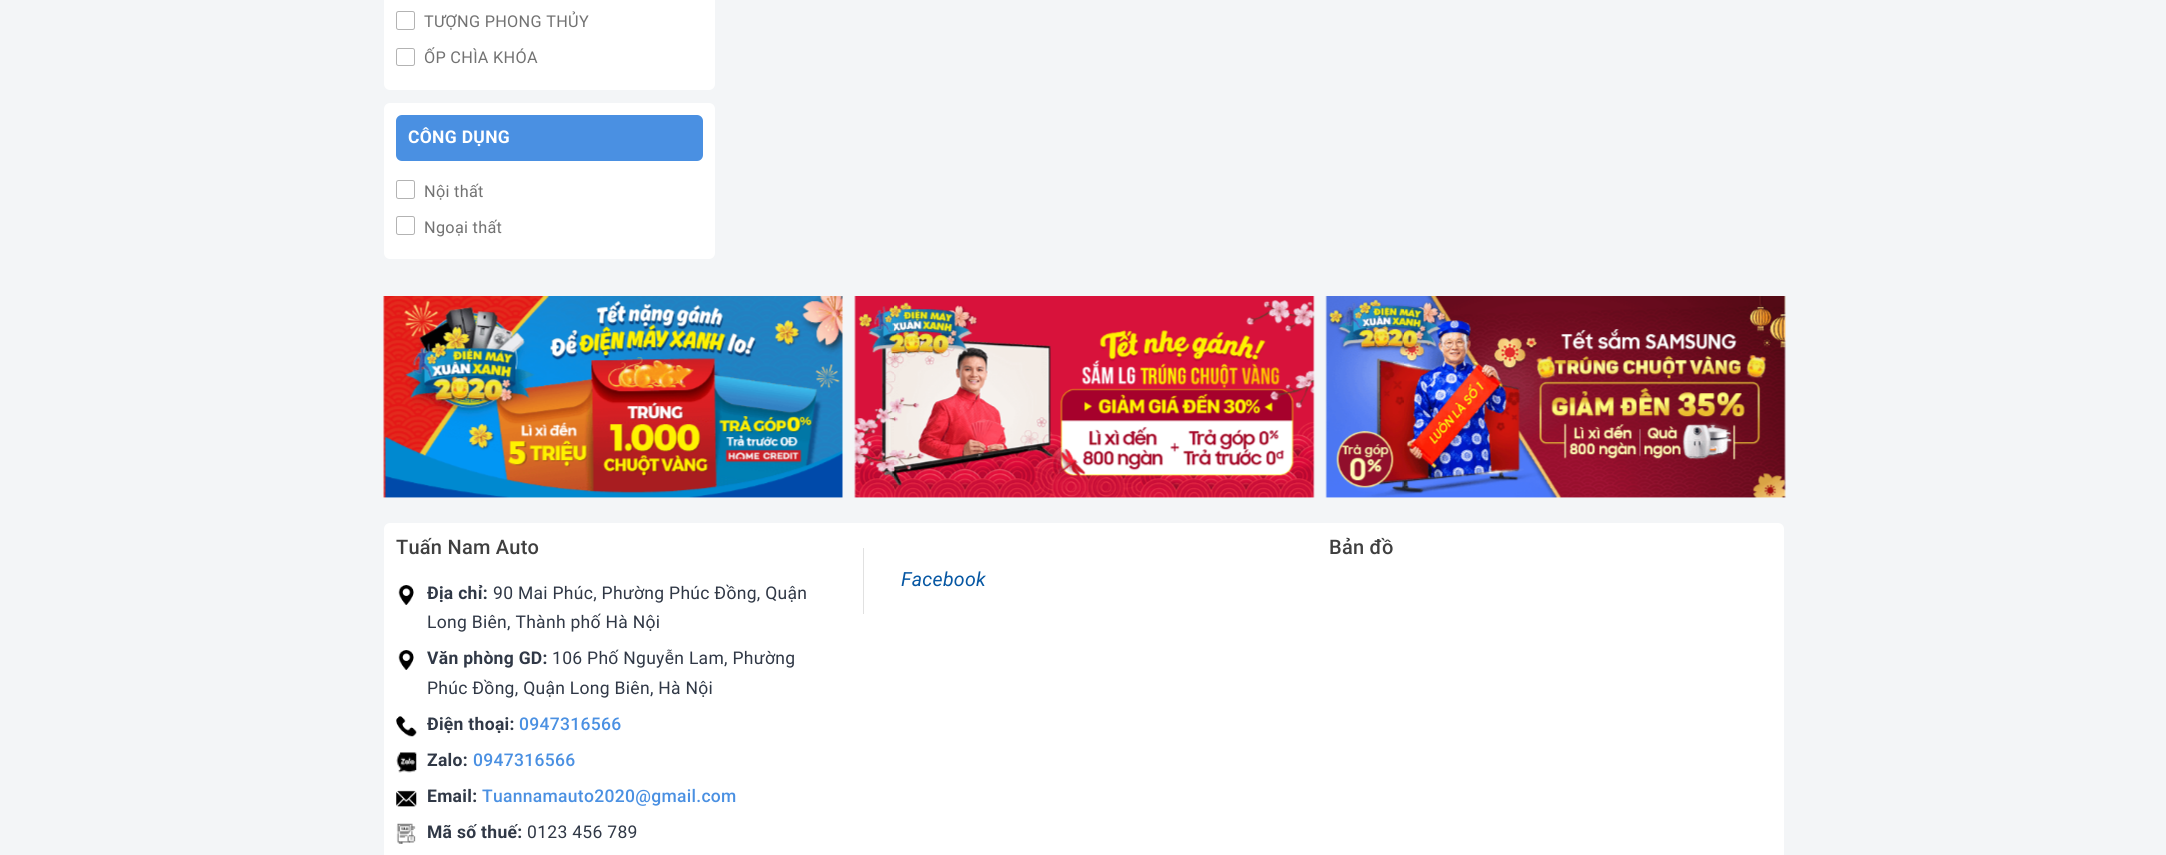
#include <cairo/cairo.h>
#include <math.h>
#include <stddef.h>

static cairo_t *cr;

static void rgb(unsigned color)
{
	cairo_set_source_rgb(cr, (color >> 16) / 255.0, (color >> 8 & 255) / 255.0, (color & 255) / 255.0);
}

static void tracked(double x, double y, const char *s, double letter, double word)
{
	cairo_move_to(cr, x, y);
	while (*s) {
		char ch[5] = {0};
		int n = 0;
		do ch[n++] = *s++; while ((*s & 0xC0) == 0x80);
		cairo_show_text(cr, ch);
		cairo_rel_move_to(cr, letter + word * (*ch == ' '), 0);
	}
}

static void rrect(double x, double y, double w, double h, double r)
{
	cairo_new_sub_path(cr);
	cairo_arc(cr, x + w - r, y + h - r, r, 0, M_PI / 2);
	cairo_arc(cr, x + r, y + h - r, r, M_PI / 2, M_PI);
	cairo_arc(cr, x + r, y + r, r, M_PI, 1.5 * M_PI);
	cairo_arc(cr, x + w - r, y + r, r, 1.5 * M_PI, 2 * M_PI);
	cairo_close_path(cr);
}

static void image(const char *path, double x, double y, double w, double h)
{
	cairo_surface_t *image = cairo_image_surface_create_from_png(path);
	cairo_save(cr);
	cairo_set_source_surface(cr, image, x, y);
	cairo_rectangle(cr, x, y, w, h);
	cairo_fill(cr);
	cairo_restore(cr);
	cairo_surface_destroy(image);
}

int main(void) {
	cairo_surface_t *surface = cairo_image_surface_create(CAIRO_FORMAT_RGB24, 2166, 855);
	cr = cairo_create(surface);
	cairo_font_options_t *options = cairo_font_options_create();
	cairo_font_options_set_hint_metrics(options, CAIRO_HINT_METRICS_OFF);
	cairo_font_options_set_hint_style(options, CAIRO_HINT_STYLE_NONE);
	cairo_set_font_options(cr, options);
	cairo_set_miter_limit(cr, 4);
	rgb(0xf3f5f7);
	cairo_paint(cr);
	rgb(0xffffff);
	rrect(384, -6, 331, 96, 6);
	cairo_fill(cr);
	rrect(396.5, 11.5, 18, 18, 2);
	rgb(0xb3b3b3);
	cairo_set_line_width(cr, 1);
	cairo_stroke(cr);
	rrect(396.5, 48.5, 18, 17, 2);
	cairo_stroke(cr);
	rgb(0xffffff);
	rrect(384, 103, 331, 156, 6);
	cairo_fill(cr);
	rgb(0x4a90e2);
	rrect(396, 115, 307, 46, 6);
	cairo_fill(cr);
	rrect(396.5, 180.5, 18, 18, 2);
	rgb(0xb3b3b3);
	cairo_stroke(cr);
	rrect(396.5, 216.5, 18, 18, 2);
	cairo_stroke(cr);
	image("img/1.png", 383, 296, 460, 202);
	image("img/2.png", 854, 296, 461, 202);
	image("img/3.png", 1325, 296, 461, 202);
	rgb(0xffffff);
	rrect(384, 523, 1400, 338, 6);
	cairo_fill(cr);
	image("img/4.png", 398, 585, 16, 20);
	image("img/4.png", 398, 650, 16, 20);
	image("img/5.png", 396, 716, 21, 21);
	image("img/6.png", 396, 752, 21, 21);
	image("img/7.png", 396, 790, 21, 17);
	image("img/8.png", 396, 823, 20, 21);
	rgb(0xe1e1e1);
	cairo_rectangle(cr, 863, 548, 1, 66);
	cairo_fill(cr);
	cairo_select_font_face(cr, "Roboto", CAIRO_FONT_SLANT_NORMAL, CAIRO_FONT_WEIGHT_NORMAL);
	cairo_set_font_size(cr, 16.25);
	rgb(0x727272);
	tracked(424, 27, "TƯỢNG PHONG THỦY", 0.3, 0);
	tracked(424, 63, "ỐP CHÌA KHÓA", 0.3, 0);
	cairo_select_font_face(cr, "Roboto", CAIRO_FONT_SLANT_NORMAL, CAIRO_FONT_WEIGHT_BOLD);
	cairo_set_font_size(cr, 17.5);
	rgb(0xffffff);
	tracked(408, 143, "CÔNG DỤNG", 0.3, 0);
	cairo_select_font_face(cr, "Roboto", CAIRO_FONT_SLANT_NORMAL, CAIRO_FONT_WEIGHT_NORMAL);
	cairo_set_font_size(cr, 16.25);
	rgb(0x727272);
	tracked(424, 197, "Nội thất", 0.3, 0);
	tracked(424, 233, "Ngoại thất", 0.3, 0);
	cairo_select_font_face(cr, "Roboto Medium", CAIRO_FONT_SLANT_NORMAL, CAIRO_FONT_WEIGHT_NORMAL);
	cairo_set_font_size(cr, 20);
	rgb(0x3f3f3f);
	tracked(396, 554, "Tuấn Nam Auto", 0.25, 0);
	cairo_select_font_face(cr, "Roboto", CAIRO_FONT_SLANT_NORMAL, CAIRO_FONT_WEIGHT_BOLD);
	cairo_set_font_size(cr, 17.5);
	rgb(0x303846);
	tracked(427, 599, "Địa chỉ:", 0.3, 0);
	cairo_select_font_face(cr, "Roboto", CAIRO_FONT_SLANT_NORMAL, CAIRO_FONT_WEIGHT_NORMAL);
	tracked(493, 599, "90 Mai Phúc, Phường Phúc Đồng, Quận", 0.3, 0);
	tracked(427, 628, "Long Biên, Thành phố Hà Nội", 0.3, 0);
	cairo_select_font_face(cr, "Roboto", CAIRO_FONT_SLANT_NORMAL, CAIRO_FONT_WEIGHT_BOLD);
	tracked(427, 664, "Văn phòng GD:", 0.3, 0);
	cairo_select_font_face(cr, "Roboto", CAIRO_FONT_SLANT_NORMAL, CAIRO_FONT_WEIGHT_NORMAL);
	tracked(552, 664, "106 Phố Nguyễn Lam, Phường", 0.3, 0);
	tracked(427, 694, "Phúc Đồng, Quận Long Biên, Hà Nội", 0.3, 0);
	cairo_select_font_face(cr, "Roboto", CAIRO_FONT_SLANT_NORMAL, CAIRO_FONT_WEIGHT_BOLD);
	tracked(427, 730, "Điện thoại:", 0.3, 0);
	cairo_select_font_face(cr, "Roboto Medium", CAIRO_FONT_SLANT_NORMAL, CAIRO_FONT_WEIGHT_NORMAL);
	rgb(0x4a90e2);
	tracked(519, 730, "0947316566", 0.3, 0);
	cairo_select_font_face(cr, "Roboto", CAIRO_FONT_SLANT_NORMAL, CAIRO_FONT_WEIGHT_BOLD);
	rgb(0x303846);
	tracked(427, 766, "Zalo:", 0.3, 0);
	cairo_select_font_face(cr, "Roboto Medium", CAIRO_FONT_SLANT_NORMAL, CAIRO_FONT_WEIGHT_NORMAL);
	rgb(0x4a90e2);
	tracked(473, 766, "0947316566", 0.3, 0);
	cairo_select_font_face(cr, "Roboto", CAIRO_FONT_SLANT_NORMAL, CAIRO_FONT_WEIGHT_BOLD);
	rgb(0x303846);
	tracked(427, 802, "Email:", 0.3, 0);
	cairo_select_font_face(cr, "Roboto Medium", CAIRO_FONT_SLANT_NORMAL, CAIRO_FONT_WEIGHT_NORMAL);
	rgb(0x4a90e2);
	tracked(482, 802, "Tuannamauto2020@gmail.com", 0.3, 0);
	cairo_select_font_face(cr, "Roboto", CAIRO_FONT_SLANT_NORMAL, CAIRO_FONT_WEIGHT_BOLD);
	rgb(0x303846);
	tracked(427, 838, "Mã số thuế:", 0.3, 0);
	cairo_select_font_face(cr, "Roboto", CAIRO_FONT_SLANT_NORMAL, CAIRO_FONT_WEIGHT_NORMAL);
	tracked(527, 838, "0123 456 789", 0.3, 0);
	cairo_select_font_face(cr, "Roboto Medium", CAIRO_FONT_SLANT_NORMAL, CAIRO_FONT_WEIGHT_NORMAL);
	cairo_set_font_size(cr, 20);
	rgb(0x3f3f3f);
	tracked(1329, 554, "Bản đồ", 0.25, 0);
	cairo_select_font_face(cr, "Roboto", CAIRO_FONT_SLANT_ITALIC, CAIRO_FONT_WEIGHT_NORMAL);
	cairo_set_font_size(cr, 19.5);
	rgb(0x0657a3);
	tracked(901, 586, "Facebook", 0.3, 0);
	cairo_surface_write_to_png(surface, "page.png");
	cairo_font_options_destroy(options);
	cairo_destroy(cr);
	cairo_surface_destroy(surface);
	return 0;
}
